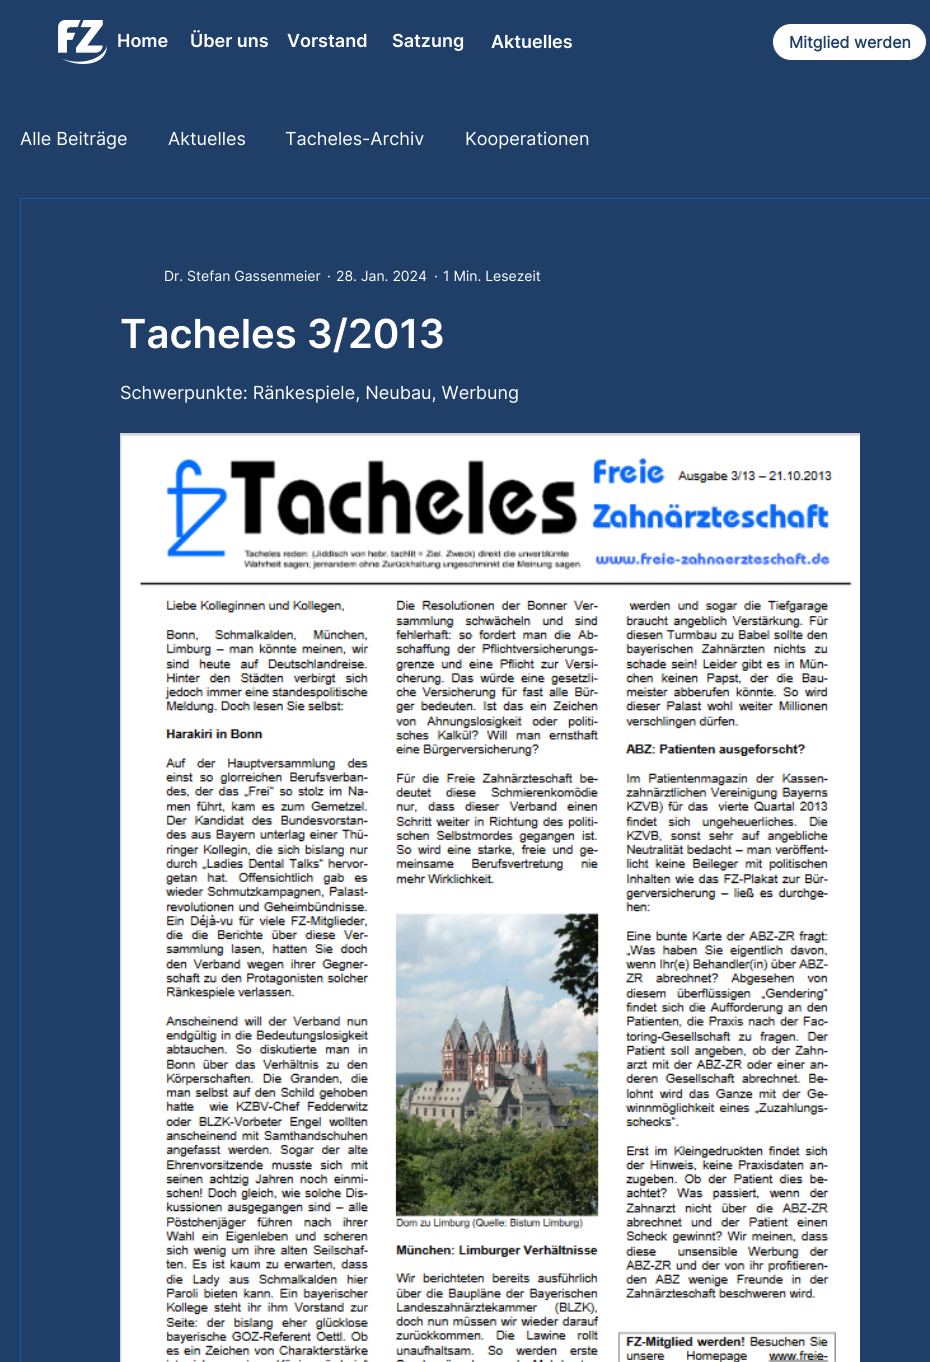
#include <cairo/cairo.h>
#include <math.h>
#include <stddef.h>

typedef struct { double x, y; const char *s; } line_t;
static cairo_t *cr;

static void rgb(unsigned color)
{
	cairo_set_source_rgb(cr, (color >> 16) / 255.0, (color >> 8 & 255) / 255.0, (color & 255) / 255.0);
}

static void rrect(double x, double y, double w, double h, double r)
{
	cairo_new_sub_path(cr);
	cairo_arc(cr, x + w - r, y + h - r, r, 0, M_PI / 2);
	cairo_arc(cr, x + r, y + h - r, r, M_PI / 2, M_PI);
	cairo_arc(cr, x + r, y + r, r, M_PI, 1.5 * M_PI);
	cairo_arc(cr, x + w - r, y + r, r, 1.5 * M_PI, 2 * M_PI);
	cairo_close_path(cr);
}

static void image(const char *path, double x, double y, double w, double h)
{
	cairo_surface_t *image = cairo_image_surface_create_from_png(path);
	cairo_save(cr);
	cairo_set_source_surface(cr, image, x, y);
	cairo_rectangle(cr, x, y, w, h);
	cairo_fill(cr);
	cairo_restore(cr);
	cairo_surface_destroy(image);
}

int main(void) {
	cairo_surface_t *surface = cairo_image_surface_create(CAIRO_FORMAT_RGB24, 930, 1362);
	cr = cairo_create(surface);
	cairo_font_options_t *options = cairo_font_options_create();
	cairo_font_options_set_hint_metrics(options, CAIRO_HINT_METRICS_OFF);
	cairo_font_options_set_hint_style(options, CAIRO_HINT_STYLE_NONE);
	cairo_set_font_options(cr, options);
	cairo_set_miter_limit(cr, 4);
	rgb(0x1f3f68);
	cairo_paint(cr);
	image("img/1.png", 58, 20, 49, 44);
	rgb(0xffffff);
	rrect(772.5, 23.5, 154, 37, 18.5);
	cairo_fill_preserve(cr);
	rgb(0x1f3f68);
	cairo_set_line_width(cr, 1);
	cairo_stroke(cr);
	cairo_rectangle(cr, 20.5, 198.5, 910, 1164);
	rgb(0x1d57a3);
	cairo_stroke(cr);
	image("img/2.png", 120, 433, 740, 929);
	cairo_select_font_face(cr, "Inter SemiBold", CAIRO_FONT_SLANT_NORMAL, CAIRO_FONT_WEIGHT_NORMAL);
	cairo_set_font_size(cr, 18);
	rgb(0xffffff);
	{
		static const line_t items[] = {
			{117, 47, "Home"},
			{190, 47, "Über uns"},
			{287, 47, "Vorstand"},
			{392, 47, "Satzung"},
			{491, 48, "Aktuelles"},
		};
		for (size_t i = 0; i < sizeof items / sizeof *items; i++) {
			cairo_move_to(cr, items[i].x, items[i].y);
			cairo_show_text(cr, items[i].s);
		}
	}
	cairo_select_font_face(cr, "Inter", CAIRO_FONT_SLANT_NORMAL, CAIRO_FONT_WEIGHT_BOLD);
	cairo_set_font_size(cr, 16);
	rgb(0x1f3f68);
	cairo_move_to(cr, 789, 48);
	cairo_show_text(cr, "Mitglied werden");
	cairo_select_font_face(cr, "Inter", CAIRO_FONT_SLANT_NORMAL, CAIRO_FONT_WEIGHT_NORMAL);
	cairo_set_font_size(cr, 18);
	rgb(0xffffff);
	{
		static const line_t items[] = {
			{20, 145, "Alle Beiträge"},
			{168, 145, "Aktuelles"},
			{285, 145, "Tacheles-Archiv"},
			{465, 145, "Kooperationen"},
		};
		for (size_t i = 0; i < sizeof items / sizeof *items; i++) {
			cairo_move_to(cr, items[i].x, items[i].y);
			cairo_show_text(cr, items[i].s);
		}
	}
	cairo_set_font_size(cr, 14);
	{
		static const line_t items[] = {
			{164, 281, "Dr. Stefan Gassenmeier"},
			{327, 281, "·"},
			{336, 281, "28. Jan. 2024"},
			{434, 281, "·"},
			{443, 281, "1 Min. Lesezeit"},
		};
		for (size_t i = 0; i < sizeof items / sizeof *items; i++) {
			cairo_move_to(cr, items[i].x, items[i].y);
			cairo_show_text(cr, items[i].s);
		}
	}
	cairo_select_font_face(cr, "Inter SemiBold", CAIRO_FONT_SLANT_NORMAL, CAIRO_FONT_WEIGHT_NORMAL);
	cairo_set_font_size(cr, 40);
	cairo_move_to(cr, 120, 348);
	cairo_show_text(cr, "Tacheles 3/2013");
	cairo_select_font_face(cr, "Inter", CAIRO_FONT_SLANT_NORMAL, CAIRO_FONT_WEIGHT_NORMAL);
	cairo_set_font_size(cr, 18);
	cairo_move_to(cr, 120, 399);
	cairo_show_text(cr, "Schwerpunkte: Ränkespiele, Neubau, Werbung");
	cairo_surface_write_to_png(surface, "page.png");
	cairo_font_options_destroy(options);
	cairo_destroy(cr);
	cairo_surface_destroy(surface);
	return 0;
}
